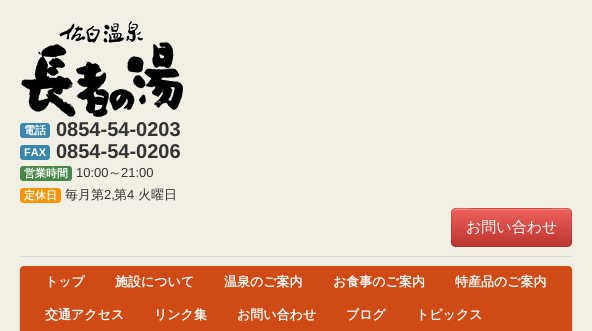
#include <cairo/cairo.h>
#include <math.h>
#include <stddef.h>

typedef struct { double x, y; const char *s; } line_t;
static cairo_t *cr;

static void rgb(unsigned color)
{
	cairo_set_source_rgb(cr, (color >> 16) / 255.0, (color >> 8 & 255) / 255.0, (color & 255) / 255.0);
}

static void rrect(double x, double y, double w, double h, double r)
{
	cairo_new_sub_path(cr);
	cairo_arc(cr, x + w - r, y + h - r, r, 0, M_PI / 2);
	cairo_arc(cr, x + r, y + h - r, r, M_PI / 2, M_PI);
	cairo_arc(cr, x + r, y + r, r, M_PI, 1.5 * M_PI);
	cairo_arc(cr, x + w - r, y + r, r, 1.5 * M_PI, 2 * M_PI);
	cairo_close_path(cr);
}

static void soft_shadow(double x, double y, double w, double h, double r, double blur, double alpha)
{
	cairo_push_group_with_content(cr, CAIRO_CONTENT_ALPHA);
	cairo_set_operator(cr, CAIRO_OPERATOR_SOURCE);
	for (int i = 15; i >= -15 && fmin(w, h) + blur * i / 3 > 0; i -= 2) {
		double e = blur * i / 6;
		cairo_set_source_rgba(cr, 0, 0, 0, alpha * erfc((i - 1) / 8.5) / 2);
		rrect(x - e, y - e, w + 2 * e, h + 2 * e, fmax(0, fmin(r + e + blur * .6, fmin(w, h) / 2 + e)));
		cairo_fill(cr);
	}
	cairo_pattern_t *soft = cairo_pop_group(cr);
	cairo_mask(cr, soft);
	cairo_pattern_destroy(soft);
}

static void image(const char *path, double x, double y, double w, double h)
{
	cairo_surface_t *image = cairo_image_surface_create_from_png(path);
	cairo_save(cr);
	cairo_set_source_surface(cr, image, x, y);
	cairo_rectangle(cr, x, y, w, h);
	cairo_fill(cr);
	cairo_restore(cr);
	cairo_surface_destroy(image);
}

int main(void) {
	cairo_surface_t *surface = cairo_image_surface_create(CAIRO_FORMAT_RGB24, 592, 331);
	cr = cairo_create(surface);
	cairo_font_options_t *options = cairo_font_options_create();
	cairo_font_options_set_hint_metrics(options, CAIRO_HINT_METRICS_OFF);
	cairo_font_options_set_hint_style(options, CAIRO_HINT_STYLE_NONE);
	cairo_set_font_options(cr, options);
	cairo_set_miter_limit(cr, 4);
	cairo_pattern_t *gradient;
	rgb(0xf2efe4);
	cairo_paint(cr);
	rgb(0xd9d9d9);
	cairo_rectangle(cr, 20, 256, 552, 1);
	cairo_fill(cr);
	image("img/1.png", 20, 21, 164, 96);
	rgb(0x3a87ad);
	rrect(20, 123, 30, 15, 3);
	cairo_fill(cr);
	rrect(20, 145, 30, 15, 3);
	cairo_fill(cr);
	rgb(0x468847);
	rrect(20, 166, 52, 15, 3);
	cairo_fill(cr);
	rgb(0xf89406);
	rrect(20, 188, 41, 15, 3);
	cairo_fill(cr);
	rgb(0x000000);
	soft_shadow(451, 209, 121, 39, 5, 1, 0.05);
	rgb(0xda4f49);
	rrect(451, 208, 121, 39, 5);
	cairo_fill(cr);
	cairo_save(cr);
	rrect(451, 208, 121, 39, 5);
	cairo_clip(cr);
	gradient = cairo_pattern_create_linear(512, 209, 512, 246);
	cairo_pattern_add_color_stop_rgba(gradient, 0, 0.933, 0.373, 0.357, 1);
	cairo_pattern_add_color_stop_rgba(gradient, 1, 0.741, 0.212, 0.184, 1);
	cairo_set_source(cr, gradient);
	cairo_pattern_destroy(gradient);
	cairo_rectangle(cr, 451, 209, 121, 37);
	cairo_fill(cr);
	cairo_restore(cr);
	cairo_set_source_rgba(cr, 1, 1, 1, 0.2);
	cairo_new_path(cr);
	cairo_move_to(cr, 456, 210);
	cairo_line_to(cr, 567, 210);
	cairo_curve_to(cr, 569, 210, 571, 212, 571, 214);
	cairo_curve_to(cr, 571, 204, 552, 209, 548, 209);
	cairo_line_to(cr, 474, 209);
	cairo_curve_to(cr, 471, 209, 452, 204, 452, 214);
	cairo_curve_to(cr, 452, 212, 454, 210, 456, 210);
	cairo_close_path(cr);
	cairo_fill(cr);
	cairo_new_path(cr);
	cairo_move_to(cr, 570, 245);
	cairo_curve_to(cr, 569.5, 246, 568, 246.5, 567, 246.5);
	cairo_line_to(cr, 456, 246.5);
	cairo_curve_to(cr, 455, 246.5, 453.5, 246, 453, 245);
	cairo_set_source_rgba(cr, 0, 0, 0, 0.25);
	cairo_set_line_width(cr, 1);
	cairo_stroke(cr);
	cairo_new_path(cr);
	cairo_move_to(cr, 453, 245);
	cairo_curve_to(cr, 451, 243, 451.5, 239.5, 451.5, 237);
	cairo_line_to(cr, 451.5, 227.5);
	cairo_curve_to(cr, 451.5, 204, 449, 208.5, 474.5, 208.5);
	cairo_line_to(cr, 548.5, 208.5);
	cairo_curve_to(cr, 576.5, 208.5, 571.5, 205, 571.5, 232.5);
	cairo_curve_to(cr, 571.5, 235.5, 573, 242.5, 570, 245);
	cairo_set_source_rgba(cr, 0, 0, 0, 0.1);
	cairo_stroke(cr);
	rgb(0x000000);
	soft_shadow(20, 267, 552, 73, 4, 1.5, 0.25);
	rgb(0xd04a15);
	rrect(20, 266, 552, 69, 4);
	cairo_fill(cr);
	cairo_select_font_face(cr, "WenQuanYi Zen Hei", CAIRO_FONT_SLANT_NORMAL, CAIRO_FONT_WEIGHT_BOLD);
	cairo_set_font_size(cr, 11);
	rgb(0xffffff);
	cairo_move_to(cr, 24, 134);
	cairo_show_text(cr, "電話");
	cairo_select_font_face(cr, "Liberation Sans", CAIRO_FONT_SLANT_NORMAL, CAIRO_FONT_WEIGHT_BOLD);
	cairo_set_font_size(cr, 20);
	rgb(0x333333);
	cairo_move_to(cr, 56, 136);
	cairo_show_text(cr, "0854-54-0203");
	cairo_set_font_size(cr, 11);
	rgb(0xffffff);
	cairo_move_to(cr, 24, 156);
	cairo_show_text(cr, "FAX");
	cairo_set_font_size(cr, 20);
	rgb(0x333333);
	cairo_move_to(cr, 56, 158);
	cairo_show_text(cr, "0854-54-0206");
	cairo_select_font_face(cr, "WenQuanYi Zen Hei", CAIRO_FONT_SLANT_NORMAL, CAIRO_FONT_WEIGHT_BOLD);
	cairo_set_font_size(cr, 11);
	rgb(0xffffff);
	cairo_move_to(cr, 24, 177);
	cairo_show_text(cr, "営業時間");
	cairo_select_font_face(cr, "Liberation Sans", CAIRO_FONT_SLANT_NORMAL, CAIRO_FONT_WEIGHT_NORMAL);
	cairo_set_font_size(cr, 13);
	rgb(0x333333);
	cairo_move_to(cr, 76, 177);
	cairo_show_text(cr, "10:00");
	cairo_select_font_face(cr, "WenQuanYi Zen Hei Medium", CAIRO_FONT_SLANT_NORMAL, CAIRO_FONT_WEIGHT_NORMAL);
	cairo_move_to(cr, 108, 177);
	cairo_show_text(cr, "～");
	cairo_select_font_face(cr, "Liberation Sans", CAIRO_FONT_SLANT_NORMAL, CAIRO_FONT_WEIGHT_NORMAL);
	cairo_move_to(cr, 121, 177);
	cairo_show_text(cr, "21:00");
	cairo_select_font_face(cr, "WenQuanYi Zen Hei", CAIRO_FONT_SLANT_NORMAL, CAIRO_FONT_WEIGHT_BOLD);
	cairo_set_font_size(cr, 11);
	rgb(0xffffff);
	cairo_move_to(cr, 24, 199);
	cairo_show_text(cr, "定休日");
	cairo_select_font_face(cr, "WenQuanYi Zen Hei Medium", CAIRO_FONT_SLANT_NORMAL, CAIRO_FONT_WEIGHT_NORMAL);
	cairo_set_font_size(cr, 13);
	rgb(0x333333);
	cairo_move_to(cr, 65, 199);
	cairo_show_text(cr, "毎月第");
	cairo_select_font_face(cr, "Liberation Sans", CAIRO_FONT_SLANT_NORMAL, CAIRO_FONT_WEIGHT_NORMAL);
	cairo_move_to(cr, 104, 199);
	cairo_show_text(cr, "2,");
	cairo_select_font_face(cr, "WenQuanYi Zen Hei Medium", CAIRO_FONT_SLANT_NORMAL, CAIRO_FONT_WEIGHT_NORMAL);
	cairo_move_to(cr, 114, 199);
	cairo_show_text(cr, "第");
	cairo_select_font_face(cr, "Liberation Sans", CAIRO_FONT_SLANT_NORMAL, CAIRO_FONT_WEIGHT_NORMAL);
	cairo_move_to(cr, 127, 199);
	cairo_show_text(cr, "4");
	cairo_select_font_face(cr, "WenQuanYi Zen Hei Medium", CAIRO_FONT_SLANT_NORMAL, CAIRO_FONT_WEIGHT_NORMAL);
	cairo_move_to(cr, 138, 199);
	cairo_show_text(cr, "火曜日");
	cairo_set_font_size(cr, 15);
	rgb(0xffffff);
	cairo_move_to(cr, 466, 232);
	cairo_show_text(cr, "お問い合わせ");
	cairo_select_font_face(cr, "WenQuanYi Zen Hei", CAIRO_FONT_SLANT_NORMAL, CAIRO_FONT_WEIGHT_BOLD);
	cairo_set_font_size(cr, 13);
	{
		static const line_t items[] = {
			{45, 286, "トップ"},
			{115, 286, "施設について"},
			{224, 286, "温泉のご案内"},
			{333, 286, "お食事のご案内"},
			{455, 286, "特産品のご案内"},
			{45, 319, "交通アクセス"},
			{154, 319, "リンク集"},
			{237, 319, "お問い合わせ"},
			{346, 319, "ブログ"},
			{416, 319, "トピックス"},
		};
		for (size_t i = 0; i < sizeof items / sizeof *items; i++) {
			cairo_move_to(cr, items[i].x, items[i].y);
			cairo_show_text(cr, items[i].s);
		}
	}
	cairo_surface_write_to_png(surface, "page.png");
	cairo_font_options_destroy(options);
	cairo_destroy(cr);
	cairo_surface_destroy(surface);
	return 0;
}
